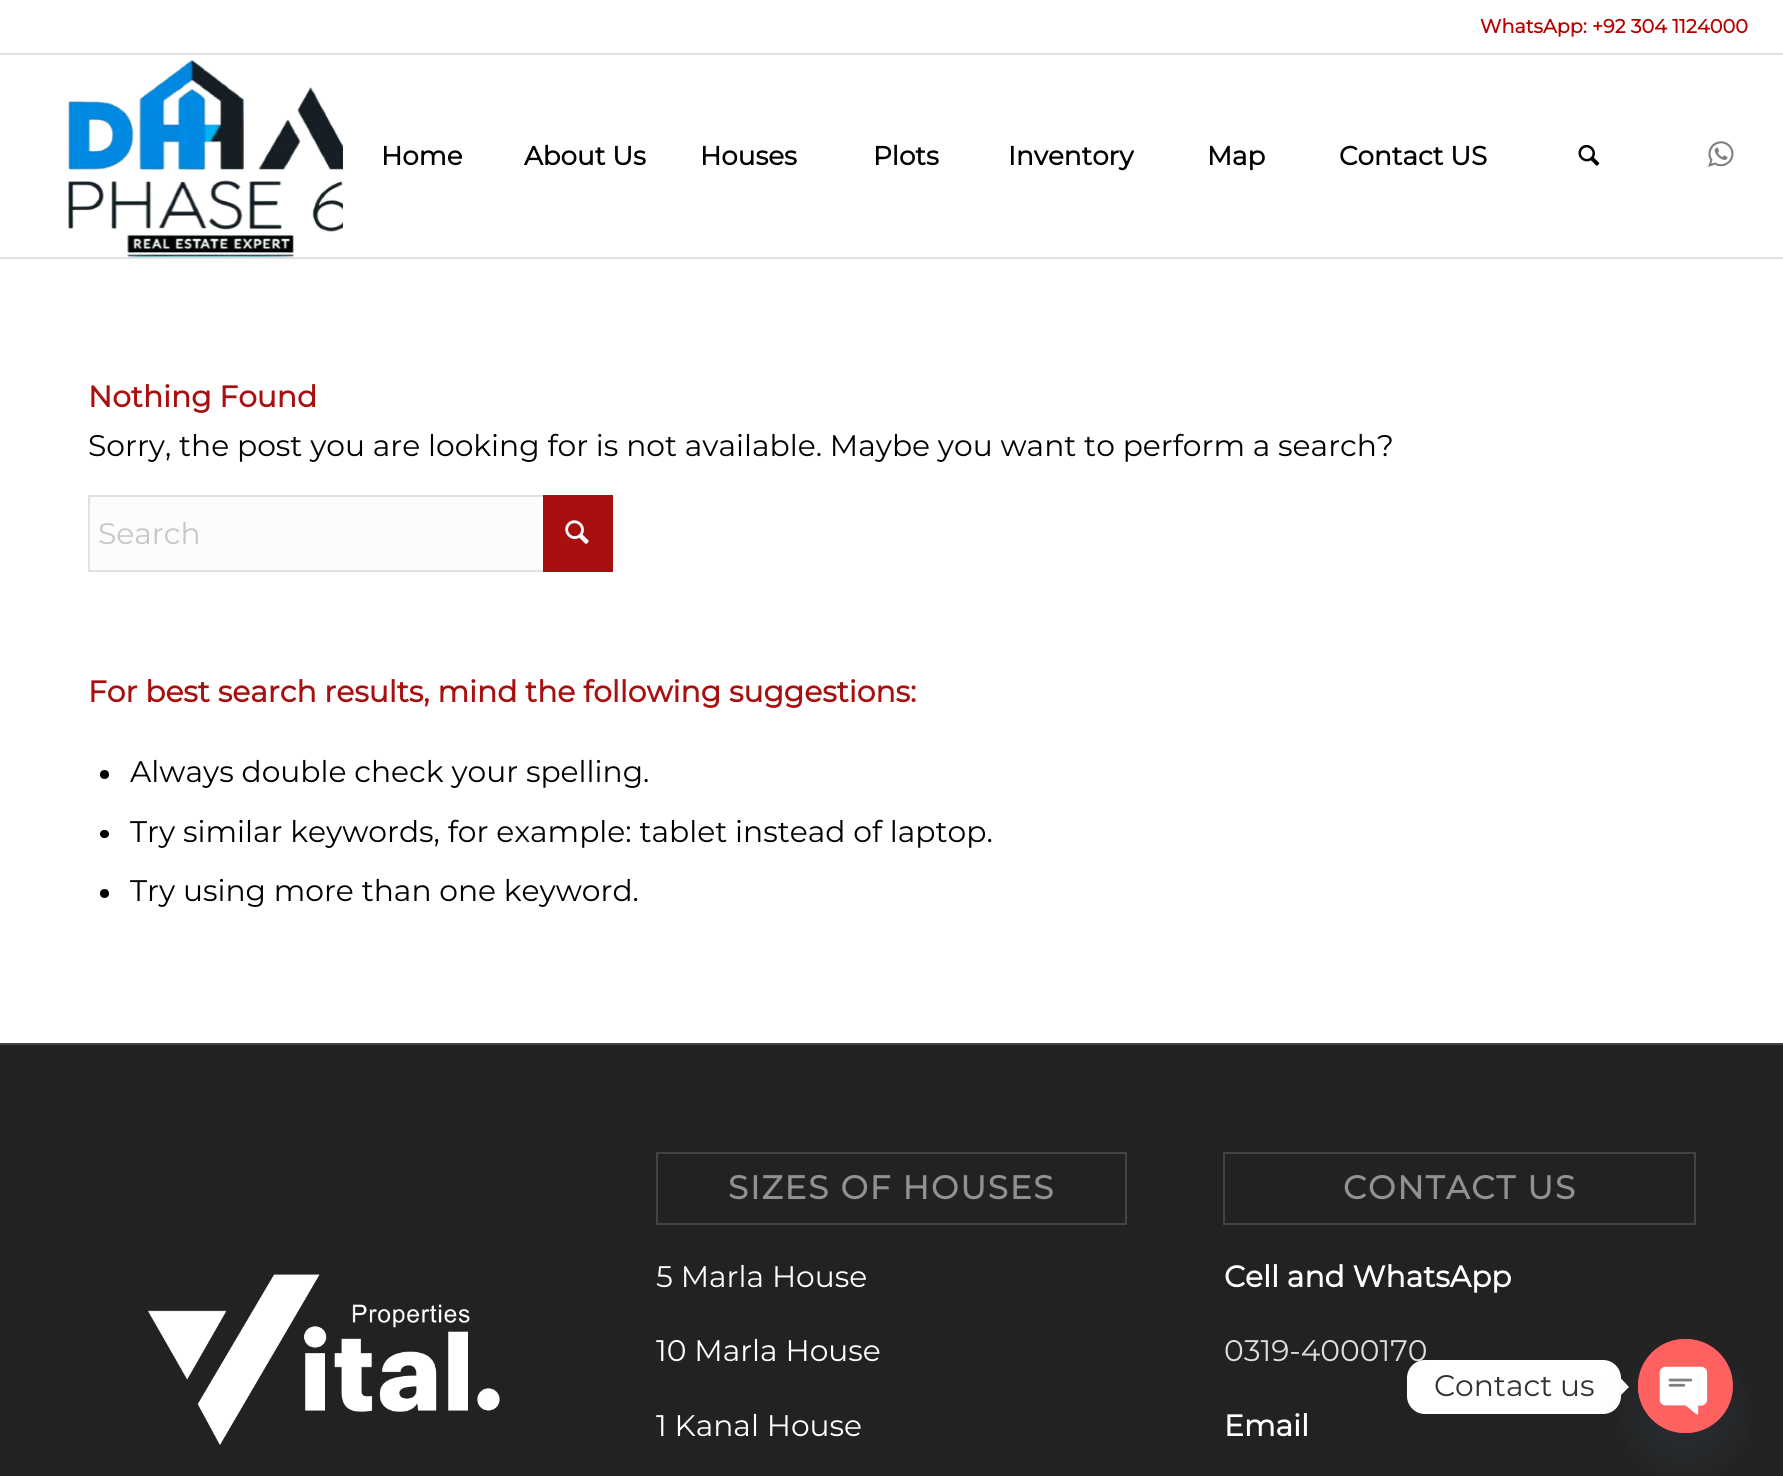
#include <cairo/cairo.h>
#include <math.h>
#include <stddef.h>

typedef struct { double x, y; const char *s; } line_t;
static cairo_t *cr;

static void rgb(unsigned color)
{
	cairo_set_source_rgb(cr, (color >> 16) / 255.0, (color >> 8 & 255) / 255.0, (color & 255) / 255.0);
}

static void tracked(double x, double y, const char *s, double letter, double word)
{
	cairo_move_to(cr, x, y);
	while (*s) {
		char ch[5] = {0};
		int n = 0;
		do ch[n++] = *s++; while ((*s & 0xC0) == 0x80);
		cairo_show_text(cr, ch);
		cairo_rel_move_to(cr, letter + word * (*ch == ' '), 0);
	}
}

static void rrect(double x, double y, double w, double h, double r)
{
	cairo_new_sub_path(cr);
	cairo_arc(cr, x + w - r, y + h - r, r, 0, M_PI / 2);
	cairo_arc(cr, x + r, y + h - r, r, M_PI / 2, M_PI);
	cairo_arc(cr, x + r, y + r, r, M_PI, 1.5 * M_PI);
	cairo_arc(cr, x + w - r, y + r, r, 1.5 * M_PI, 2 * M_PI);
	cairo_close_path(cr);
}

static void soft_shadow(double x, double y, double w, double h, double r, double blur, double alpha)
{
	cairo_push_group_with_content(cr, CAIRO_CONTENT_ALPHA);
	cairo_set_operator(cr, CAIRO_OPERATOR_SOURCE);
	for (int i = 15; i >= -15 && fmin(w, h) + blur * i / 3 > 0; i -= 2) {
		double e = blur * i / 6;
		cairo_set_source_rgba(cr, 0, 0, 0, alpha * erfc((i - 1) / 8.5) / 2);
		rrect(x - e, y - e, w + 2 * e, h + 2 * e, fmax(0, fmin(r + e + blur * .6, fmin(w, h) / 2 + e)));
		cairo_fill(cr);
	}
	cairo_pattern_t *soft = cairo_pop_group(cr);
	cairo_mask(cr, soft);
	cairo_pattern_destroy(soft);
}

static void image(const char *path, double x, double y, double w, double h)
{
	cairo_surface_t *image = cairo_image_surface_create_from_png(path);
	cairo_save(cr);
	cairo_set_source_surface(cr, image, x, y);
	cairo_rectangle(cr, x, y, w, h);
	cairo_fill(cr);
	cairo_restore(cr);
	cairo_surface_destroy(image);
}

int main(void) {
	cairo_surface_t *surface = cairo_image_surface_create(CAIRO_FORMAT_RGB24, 1783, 1476);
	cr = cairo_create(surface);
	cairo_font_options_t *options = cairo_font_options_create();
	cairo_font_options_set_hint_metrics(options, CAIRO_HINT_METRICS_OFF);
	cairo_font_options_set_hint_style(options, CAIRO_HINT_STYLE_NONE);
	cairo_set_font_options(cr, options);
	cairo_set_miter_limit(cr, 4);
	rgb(0xffffff);
	cairo_paint(cr);
	rgb(0xe1e1e1);
	cairo_rectangle(cr, 0, 53, 1783, 2);
	cairo_fill(cr);
	cairo_rectangle(cr, 0, 257, 1783, 2);
	cairo_fill(cr);
	image("img/1.png", 68, 59, 275, 199);
	image("img/2.png", 1578, 144, 22, 22);
	image("img/3.png", 1708, 141, 26, 26);
	rgb(0xfcfcfc);
	cairo_rectangle(cr, 90, 497, 453, 73);
	cairo_fill(cr);
	cairo_rectangle(cr, 89, 496, 523, 75);
	rgb(0xe1e1e1);
	cairo_stroke(cr);
	rgb(0xa81010);
	cairo_rectangle(cr, 543, 495, 70, 77);
	cairo_fill(cr);
	image("img/4.png", 565, 520, 24, 24);
	rgb(0x000000);
	cairo_arc(cr, 104.5, 774.5, 4.5, 0, 2 * M_PI);
	cairo_fill(cr);
	rrect(100, 830, 9, 8, 4);
	cairo_fill(cr);
	cairo_arc(cr, 104.5, 893.5, 4.5, 0, 2 * M_PI);
	cairo_fill(cr);
	rgb(0x222222);
	cairo_rectangle(cr, 0, 1045, 1783, 431);
	cairo_fill(cr);
	rgb(0x444444);
	cairo_rectangle(cr, 0, 1043, 1783, 2);
	cairo_fill(cr);
	image("img/5.png", 148, 1274, 352, 171);
	cairo_rectangle(cr, 657, 1153, 469, 71);
	cairo_stroke(cr);
	cairo_rectangle(cr, 1224, 1153, 471, 71);
	cairo_stroke(cr);
	cairo_select_font_face(cr, "Montserrat", CAIRO_FONT_SLANT_NORMAL, CAIRO_FONT_WEIGHT_BOLD);
	cairo_set_font_size(cr, 19.25);
	rgb(0xb90000);
	cairo_move_to(cr, 1480, 33);
	cairo_show_text(cr, "WhatsApp: +92 304 1124000");
	cairo_set_font_size(cr, 26.25);
	rgb(0x000000);
	{
		static const line_t items[] = {
			{381, 165, "Home"},
			{524, 165, "About Us"},
			{700, 165, "Houses"},
			{873, 165, "Plots"},
			{1008, 165, "Inventory"},
			{1207, 165, "Map"},
			{1339, 165, "Contact US"},
		};
		for (size_t i = 0; i < sizeof items / sizeof *items; i++) {
			cairo_move_to(cr, items[i].x, items[i].y);
			cairo_show_text(cr, items[i].s);
		}
	}
	cairo_set_font_size(cr, 29.75);
	rgb(0xa81010);
	cairo_move_to(cr, 88, 407);
	cairo_show_text(cr, "Nothing Found");
	cairo_select_font_face(cr, "Montserrat Thin", CAIRO_FONT_SLANT_NORMAL, CAIRO_FONT_WEIGHT_NORMAL);
	rgb(0x000000);
	cairo_move_to(cr, 88, 456);
	cairo_show_text(cr, "Sorry, the post you are looking for is not available. Maybe you want to perform a search?");
	rgb(0xc7c7c7);
	cairo_move_to(cr, 98, 544);
	cairo_show_text(cr, "Search");
	cairo_select_font_face(cr, "Montserrat", CAIRO_FONT_SLANT_NORMAL, CAIRO_FONT_WEIGHT_BOLD);
	rgb(0xa81010);
	cairo_move_to(cr, 88, 702);
	cairo_show_text(cr, "For best search results, mind the following suggestions:");
	cairo_select_font_face(cr, "Montserrat Thin", CAIRO_FONT_SLANT_NORMAL, CAIRO_FONT_WEIGHT_NORMAL);
	rgb(0x000000);
	{
		static const line_t items[] = {
			{130, 782, "Always double check your spelling."},
			{130, 842, "Try similar keywords, for example: tablet instead of laptop."},
			{130, 901, "Try using more than one keyword."},
		};
		for (size_t i = 0; i < sizeof items / sizeof *items; i++) {
			cairo_move_to(cr, items[i].x, items[i].y);
			cairo_show_text(cr, items[i].s);
		}
	}
	cairo_select_font_face(cr, "Montserrat", CAIRO_FONT_SLANT_NORMAL, CAIRO_FONT_WEIGHT_BOLD);
	cairo_set_font_size(cr, 32.75);
	rgb(0x919191);
	tracked(728, 1199, "SIZES OF HOUSES", 1.75, 0);
	cairo_select_font_face(cr, "Montserrat Thin", CAIRO_FONT_SLANT_NORMAL, CAIRO_FONT_WEIGHT_NORMAL);
	cairo_set_font_size(cr, 29.75);
	rgb(0xffffff);
	{
		static const line_t items[] = {
			{656, 1287, "5 Marla House"},
			{656, 1361, "10 Marla House"},
			{656, 1436, "1 Kanal House"},
		};
		for (size_t i = 0; i < sizeof items / sizeof *items; i++) {
			cairo_move_to(cr, items[i].x, items[i].y);
			cairo_show_text(cr, items[i].s);
		}
	}
	cairo_select_font_face(cr, "Montserrat", CAIRO_FONT_SLANT_NORMAL, CAIRO_FONT_WEIGHT_BOLD);
	cairo_set_font_size(cr, 32.75);
	rgb(0x919191);
	tracked(1343, 1199, "CONTACT US", 1.75, 0);
	cairo_set_font_size(cr, 29.75);
	rgb(0xffffff);
	cairo_move_to(cr, 1224, 1287);
	cairo_show_text(cr, "Cell and WhatsApp");
	cairo_select_font_face(cr, "Montserrat Thin", CAIRO_FONT_SLANT_NORMAL, CAIRO_FONT_WEIGHT_NORMAL);
	rgb(0xdddddd);
	cairo_move_to(cr, 1224, 1361);
	cairo_show_text(cr, "0319-4000170");
	cairo_select_font_face(cr, "Montserrat", CAIRO_FONT_SLANT_NORMAL, CAIRO_FONT_WEIGHT_BOLD);
	rgb(0xffffff);
	cairo_move_to(cr, 1224, 1436);
	cairo_show_text(cr, "Email");
	rrect(1407, 1360, 214, 54, 18);
	cairo_fill(cr);
	cairo_select_font_face(cr, "Montserrat Thin", CAIRO_FONT_SLANT_NORMAL, CAIRO_FONT_WEIGHT_NORMAL);
	rgb(0x333333);
	cairo_move_to(cr, 1434, 1396);
	cairo_show_text(cr, "Contact us");
	rgb(0xffffff);
	cairo_new_path(cr);
	cairo_move_to(cr, 1620.5, 1395.5);
	cairo_line_to(cr, 1620.5, 1378);
	cairo_line_to(cr, 1629, 1387);
	cairo_close_path(cr);
	cairo_fill(cr);
	rgb(0x49687e);
	soft_shadow(1638, 1367, 95, 94, 47, 21, 0.16);
	rgb(0xff6060);
	rrect(1638, 1339, 95, 94, 47);
	cairo_fill(cr);
	image("img/6.png", 1638, 1339, 70, 94);
	cairo_surface_write_to_png(surface, "page.png");
	cairo_font_options_destroy(options);
	cairo_destroy(cr);
	cairo_surface_destroy(surface);
	return 0;
}
